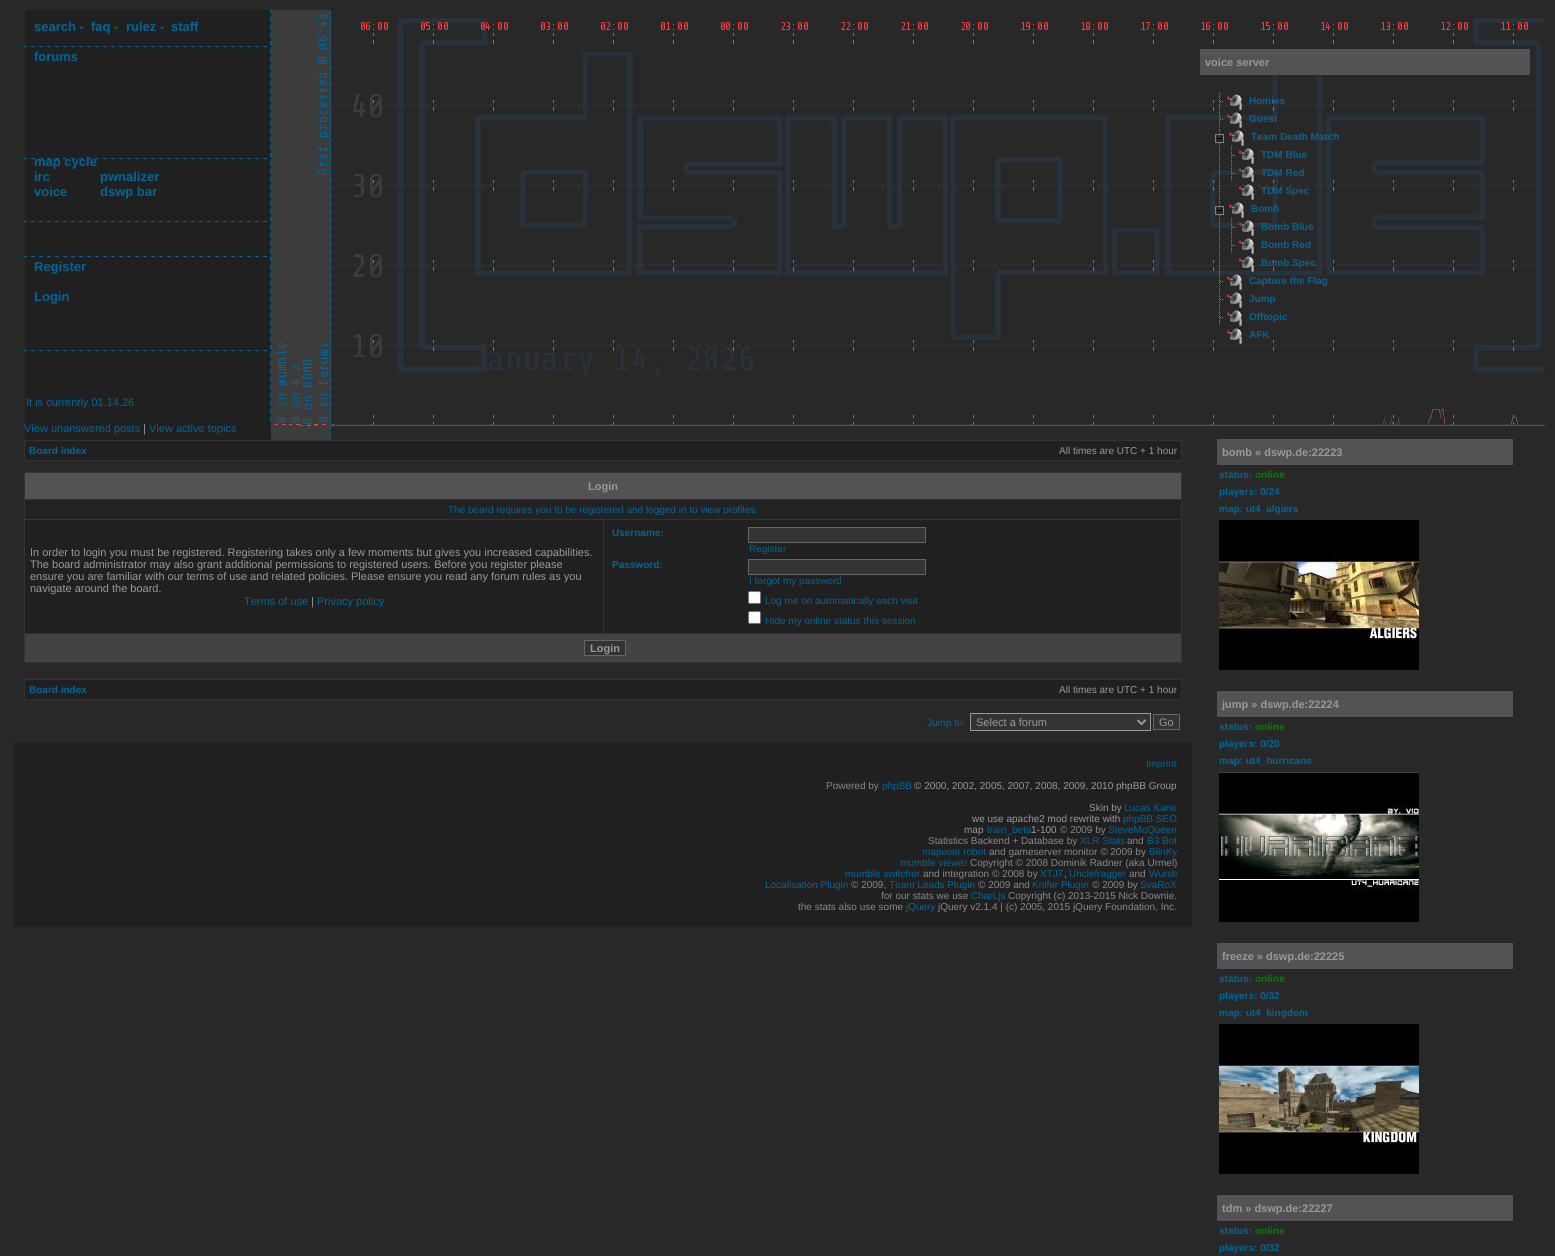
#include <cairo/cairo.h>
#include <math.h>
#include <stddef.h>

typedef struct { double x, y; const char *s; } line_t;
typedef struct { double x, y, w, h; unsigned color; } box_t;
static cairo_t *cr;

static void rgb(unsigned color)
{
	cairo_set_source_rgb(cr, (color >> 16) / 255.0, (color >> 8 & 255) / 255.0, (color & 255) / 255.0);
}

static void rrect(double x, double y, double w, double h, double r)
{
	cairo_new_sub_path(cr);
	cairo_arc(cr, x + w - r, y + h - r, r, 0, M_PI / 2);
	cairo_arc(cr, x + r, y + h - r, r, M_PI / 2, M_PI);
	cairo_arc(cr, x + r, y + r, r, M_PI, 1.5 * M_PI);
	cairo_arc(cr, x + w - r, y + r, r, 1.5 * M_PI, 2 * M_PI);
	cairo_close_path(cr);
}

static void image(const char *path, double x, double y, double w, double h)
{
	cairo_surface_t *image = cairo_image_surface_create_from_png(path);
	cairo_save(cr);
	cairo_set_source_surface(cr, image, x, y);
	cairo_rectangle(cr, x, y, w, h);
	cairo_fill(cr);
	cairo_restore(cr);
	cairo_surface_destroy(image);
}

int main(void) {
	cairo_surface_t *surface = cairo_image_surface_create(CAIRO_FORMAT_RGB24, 1555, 1256);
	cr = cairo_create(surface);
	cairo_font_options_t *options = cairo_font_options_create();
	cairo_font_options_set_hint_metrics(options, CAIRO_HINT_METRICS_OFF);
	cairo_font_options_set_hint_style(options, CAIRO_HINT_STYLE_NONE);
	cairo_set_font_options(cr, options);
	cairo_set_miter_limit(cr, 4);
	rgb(0x282828);
	cairo_paint(cr);
	image("img/1.png", 24, 10, 1521, 449);
	{
		static const box_t items[] = {
			{24, 440, 1158, 21, 0x333333},
			{25, 441, 1156, 19, 0x202020},
			{24, 472, 1158, 191, 0x333333},
			{25, 473, 1156, 26, 0x545254},
			{25, 500, 1156, 19, 0x222222},
			{25, 520, 578, 113, 0x202020},
			{604, 520, 577, 113, 0x202020},
		};
		for (size_t i = 0; i < sizeof items / sizeof *items; i++) {
			rgb(items[i].color);
			cairo_rectangle(cr, items[i].x, items[i].y, items[i].w, items[i].h);
			cairo_fill(cr);
		}
	}
	rgb(0x333333);
	cairo_rectangle(cr, 748.5, 527.5, 177, 15);
	cairo_fill_preserve(cr);
	rgb(0x666666);
	cairo_set_line_width(cr, 1);
	cairo_stroke(cr);
	rgb(0x333333);
	cairo_rectangle(cr, 748.5, 559.5, 177, 15);
	cairo_fill_preserve(cr);
	rgb(0x666666);
	cairo_stroke(cr);
	rgb(0xffffff);
	rrect(748.5, 591.5, 12, 12, 1.5);
	cairo_fill_preserve(cr);
	rgb(0x767676);
	cairo_stroke(cr);
	rgb(0xffffff);
	rrect(748.5, 611.5, 12, 12, 1.5);
	cairo_fill_preserve(cr);
	rgb(0x767676);
	cairo_stroke(cr);
	rgb(0x444244);
	cairo_rectangle(cr, 25, 634, 1156, 28);
	cairo_fill(cr);
	rgb(0x333333);
	cairo_rectangle(cr, 584.5, 640.5, 41, 15);
	cairo_fill_preserve(cr);
	rgb(0x666666);
	cairo_stroke(cr);
	rgb(0x333333);
	cairo_rectangle(cr, 24, 679, 1158, 21);
	cairo_fill(cr);
	rgb(0x202020);
	cairo_rectangle(cr, 25, 680, 1156, 19);
	cairo_fill(cr);
	rgb(0x333333);
	cairo_rectangle(cr, 970.5, 713.5, 180, 17);
	cairo_fill_preserve(cr);
	rgb(0x999999);
	cairo_stroke(cr);
	cairo_new_path(cr);
	cairo_move_to(cr, 1137.5, 720);
	cairo_line_to(cr, 1141.5, 724);
	cairo_line_to(cr, 1145.5, 720);
	cairo_set_line_width(cr, 2);
	cairo_stroke(cr);
	rgb(0x333333);
	cairo_rectangle(cr, 1153.5, 714.5, 26, 15);
	cairo_fill_preserve(cr);
	rgb(0x666666);
	cairo_set_line_width(cr, 1);
	cairo_stroke(cr);
	rgb(0x202020);
	cairo_rectangle(cr, 14, 743, 1178, 184);
	cairo_fill(cr);
	rgb(0x545254);
	cairo_rectangle(cr, 1200, 49, 330, 26);
	cairo_fill(cr);
	image("img/2.png", 1219, 92, 4, 17);
	image("img/3.png", 1226, 94, 16, 16);
	image("img/4.png", 1219, 110, 4, 17);
	image("img/5.png", 1226, 112, 16, 16);
	image("img/6.png", 1215, 129, 9, 17);
	image("img/7.png", 1228, 130, 16, 16);
	image("img/8.png", 1219, 147, 1, 17);
	image("img/9.png", 1231, 146, 4, 17);
	image("img/7.png", 1238, 148, 16, 16);
	image("img/10.png", 1219, 165, 1, 17);
	image("img/11.png", 1231, 164, 4, 17);
	image("img/12.png", 1238, 166, 16, 16);
	image("img/8.png", 1219, 183, 1, 17);
	image("img/13.png", 1238, 184, 16, 16);
	image("img/14.png", 1215, 201, 9, 17);
	image("img/7.png", 1228, 202, 16, 16);
	image("img/15.png", 1219, 219, 1, 17);
	image("img/16.png", 1231, 218, 4, 17);
	image("img/17.png", 1238, 220, 16, 16);
	image("img/8.png", 1219, 237, 1, 17);
	image("img/9.png", 1231, 236, 4, 17);
	image("img/7.png", 1238, 238, 16, 16);
	image("img/18.png", 1219, 255, 1, 17);
	image("img/19.png", 1238, 256, 16, 16);
	image("img/20.png", 1219, 272, 4, 17);
	image("img/21.png", 1226, 274, 16, 16);
	image("img/9.png", 1219, 290, 4, 17);
	image("img/7.png", 1226, 292, 16, 16);
	image("img/9.png", 1219, 308, 4, 17);
	image("img/7.png", 1226, 310, 16, 16);
	image("img/7.png", 1226, 328, 16, 16);
	cairo_rectangle(cr, 1217, 439, 296, 26);
	cairo_fill(cr);
	image("img/22.png", 1219, 520, 200, 150);
	cairo_rectangle(cr, 1217, 691, 296, 26);
	cairo_fill(cr);
	image("img/23.png", 1219, 772, 200, 150);
	cairo_rectangle(cr, 1217, 943, 296, 26);
	cairo_fill(cr);
	image("img/24.png", 1219, 1024, 200, 150);
	cairo_rectangle(cr, 1217, 1195, 296, 26);
	cairo_fill(cr);
	cairo_select_font_face(cr, "Liberation Sans", CAIRO_FONT_SLANT_NORMAL, CAIRO_FONT_WEIGHT_BOLD);
	cairo_set_font_size(cr, 13);
	rgb(0x006699);
	{
		static const line_t items[] = {
			{34, 31, "search -"},
			{91, 31, "faq -"},
			{126, 31, "rulez -"},
			{171, 31, "staff"},
			{34, 61, "forums"},
			{34, 166, "map cycle"},
			{34, 181, "irc"},
			{100, 181, "pwnalizer"},
			{34, 196, "voice"},
			{100, 196, "dswp bar"},
			{34, 271, "Register"},
			{34, 301, "Login"},
		};
		for (size_t i = 0; i < sizeof items / sizeof *items; i++) {
			cairo_move_to(cr, items[i].x, items[i].y);
			cairo_show_text(cr, items[i].s);
		}
	}
	cairo_select_font_face(cr, "Liberation Sans", CAIRO_FONT_SLANT_NORMAL, CAIRO_FONT_WEIGHT_NORMAL);
	cairo_set_font_size(cr, 11);
	cairo_move_to(cr, 26, 406);
	cairo_show_text(cr, "It is currently 01.14.26");
	cairo_move_to(cr, 24, 432);
	cairo_show_text(cr, "View unanswered posts");
	rgb(0x999999);
	cairo_move_to(cr, 143, 432);
	cairo_show_text(cr, "|");
	rgb(0x006699);
	cairo_move_to(cr, 149, 432);
	cairo_show_text(cr, "View active topics");
	cairo_select_font_face(cr, "Liberation Sans", CAIRO_FONT_SLANT_NORMAL, CAIRO_FONT_WEIGHT_BOLD);
	cairo_set_font_size(cr, 10);
	cairo_move_to(cr, 29, 454);
	cairo_show_text(cr, "Board index");
	cairo_select_font_face(cr, "Liberation Sans", CAIRO_FONT_SLANT_NORMAL, CAIRO_FONT_WEIGHT_NORMAL);
	rgb(0x999999);
	cairo_move_to(cr, 1059, 454);
	cairo_show_text(cr, "All times are UTC + 1 hour");
	cairo_select_font_face(cr, "Liberation Sans", CAIRO_FONT_SLANT_NORMAL, CAIRO_FONT_WEIGHT_BOLD);
	cairo_set_font_size(cr, 11);
	cairo_move_to(cr, 588, 490);
	cairo_show_text(cr, "Login");
	cairo_select_font_face(cr, "Liberation Sans", CAIRO_FONT_SLANT_NORMAL, CAIRO_FONT_WEIGHT_NORMAL);
	cairo_set_font_size(cr, 10);
	rgb(0x006699);
	cairo_move_to(cr, 448, 513);
	cairo_show_text(cr, "The board requires you to be registered and logged in to view profiles.");
	cairo_set_font_size(cr, 11);
	rgb(0x999999);
	{
		static const line_t items[] = {
			{30, 556, "In order to login you must be registered. Registering takes only a few moments but gives you increased capabilities."},
			{30, 568, "The board administrator may also grant additional permissions to registered users. Before you register please"},
			{30, 580, "ensure you are familiar with our terms of use and related policies. Please ensure you read any forum rules as you"},
			{30, 592, "navigate around the board."},
		};
		for (size_t i = 0; i < sizeof items / sizeof *items; i++) {
			cairo_move_to(cr, items[i].x, items[i].y);
			cairo_show_text(cr, items[i].s);
		}
	}
	rgb(0x006699);
	cairo_move_to(cr, 244, 605);
	cairo_show_text(cr, "Terms of use");
	rgb(0x999999);
	cairo_move_to(cr, 311, 605);
	cairo_show_text(cr, "|");
	rgb(0x006699);
	cairo_move_to(cr, 317, 605);
	cairo_show_text(cr, "Privacy policy");
	cairo_select_font_face(cr, "Liberation Sans", CAIRO_FONT_SLANT_NORMAL, CAIRO_FONT_WEIGHT_BOLD);
	cairo_set_font_size(cr, 10);
	cairo_move_to(cr, 612, 536);
	cairo_show_text(cr, "Username:");
	cairo_select_font_face(cr, "Liberation Sans", CAIRO_FONT_SLANT_NORMAL, CAIRO_FONT_WEIGHT_NORMAL);
	cairo_move_to(cr, 749, 552);
	cairo_show_text(cr, "Register");
	cairo_select_font_face(cr, "Liberation Sans", CAIRO_FONT_SLANT_NORMAL, CAIRO_FONT_WEIGHT_BOLD);
	cairo_move_to(cr, 612, 568);
	cairo_show_text(cr, "Password:");
	cairo_select_font_face(cr, "Liberation Sans", CAIRO_FONT_SLANT_NORMAL, CAIRO_FONT_WEIGHT_NORMAL);
	{
		static const line_t items[] = {
			{749, 584, "I forgot my password"},
			{765, 604, "Log me on automatically each visit"},
			{765, 624, "Hide my online status this session"},
		};
		for (size_t i = 0; i < sizeof items / sizeof *items; i++) {
			cairo_move_to(cr, items[i].x, items[i].y);
			cairo_show_text(cr, items[i].s);
		}
	}
	cairo_select_font_face(cr, "Liberation Sans", CAIRO_FONT_SLANT_NORMAL, CAIRO_FONT_WEIGHT_BOLD);
	cairo_set_font_size(cr, 11);
	rgb(0x999999);
	cairo_move_to(cr, 590, 652);
	cairo_show_text(cr, "Login");
	cairo_set_font_size(cr, 10);
	rgb(0x006699);
	cairo_move_to(cr, 29, 693);
	cairo_show_text(cr, "Board index");
	cairo_select_font_face(cr, "Liberation Sans", CAIRO_FONT_SLANT_NORMAL, CAIRO_FONT_WEIGHT_NORMAL);
	rgb(0x999999);
	cairo_move_to(cr, 1059, 693);
	cairo_show_text(cr, "All times are UTC + 1 hour");
	rgb(0x006699);
	cairo_move_to(cr, 927, 726);
	cairo_show_text(cr, "Jump to:");
	cairo_set_font_size(cr, 11);
	rgb(0x999999);
	cairo_move_to(cr, 976, 726);
	cairo_show_text(cr, "Select a forum");
	cairo_move_to(cr, 1159, 726);
	cairo_show_text(cr, "Go");
	cairo_set_font_size(cr, 10);
	rgb(0x006699);
	cairo_move_to(cr, 1146, 767);
	cairo_show_text(cr, "Imprint");
	rgb(0x888888);
	cairo_move_to(cr, 826, 789);
	cairo_show_text(cr, "Powered by");
	rgb(0x006699);
	cairo_move_to(cr, 882, 789);
	cairo_show_text(cr, "phpBB");
	rgb(0x999999);
	cairo_move_to(cr, 914, 789);
	cairo_show_text(cr, "© 2000, 2002, 2005, 2007, 2008, 2009, 2010 phpBB Group");
	cairo_move_to(cr, 1089, 811);
	cairo_show_text(cr, "Skin by");
	rgb(0x006699);
	cairo_move_to(cr, 1124, 811);
	cairo_show_text(cr, "Lucas Kane");
	rgb(0x999999);
	cairo_move_to(cr, 972, 822);
	cairo_show_text(cr, "we use apache2 mod rewrite with");
	rgb(0x006699);
	cairo_move_to(cr, 1123, 822);
	cairo_show_text(cr, "phpBB SEO");
	rgb(0x999999);
	cairo_move_to(cr, 964, 833);
	cairo_show_text(cr, "map");
	rgb(0x006699);
	cairo_move_to(cr, 987, 833);
	cairo_show_text(cr, "train_beta");
	rgb(0x999999);
	cairo_move_to(cr, 1031, 833);
	cairo_show_text(cr, "1-100");
	rgb(0x888888);
	cairo_move_to(cr, 1060, 833);
	cairo_show_text(cr, "© 2009 by");
	rgb(0x006699);
	cairo_move_to(cr, 1108, 833);
	cairo_show_text(cr, "SteveMcQueen");
	rgb(0x888888);
	cairo_move_to(cr, 928, 844);
	cairo_show_text(cr, "Statistics Backend + Database by");
	rgb(0x006699);
	cairo_move_to(cr, 1080, 844);
	cairo_show_text(cr, "XLR Stats");
	rgb(0x888888);
	cairo_move_to(cr, 1127, 844);
	cairo_show_text(cr, "and");
	rgb(0x006699);
	cairo_move_to(cr, 1147, 844);
	cairo_show_text(cr, "B3 Bot");
	cairo_move_to(cr, 922, 855);
	cairo_show_text(cr, "mapvote robot");
	rgb(0x888888);
	cairo_move_to(cr, 989, 855);
	cairo_show_text(cr, "and gameserver monitor © 2009 by");
	rgb(0x006699);
	cairo_move_to(cr, 1149, 855);
	cairo_show_text(cr, "BlinKy");
	cairo_move_to(cr, 900, 866);
	cairo_show_text(cr, "mumble viewer");
	rgb(0x888888);
	cairo_move_to(cr, 970, 866);
	cairo_show_text(cr, "Copyright © 2008 Dominik Radner (aka Urmel)");
	rgb(0x006699);
	cairo_move_to(cr, 845, 877);
	cairo_show_text(cr, "mumble switcher");
	rgb(0x888888);
	cairo_move_to(cr, 923, 877);
	cairo_show_text(cr, "and integration © 2008 by");
	rgb(0x006699);
	cairo_move_to(cr, 1040, 877);
	cairo_show_text(cr, "XTJ7");
	rgb(0x888888);
	cairo_move_to(cr, 1064, 877);
	cairo_show_text(cr, ",");
	rgb(0x006699);
	cairo_move_to(cr, 1069, 877);
	cairo_show_text(cr, "Unclefragger");
	rgb(0x888888);
	cairo_move_to(cr, 1129, 877);
	cairo_show_text(cr, "and");
	rgb(0x006699);
	cairo_move_to(cr, 1149, 877);
	cairo_show_text(cr, "Wursti");
	cairo_move_to(cr, 765, 888);
	cairo_show_text(cr, "Localisation Plugin");
	rgb(0x888888);
	cairo_move_to(cr, 851, 888);
	cairo_show_text(cr, "© 2009,");
	rgb(0x006699);
	cairo_move_to(cr, 889, 888);
	cairo_show_text(cr, "Team Leads Plugin");
	rgb(0x888888);
	cairo_move_to(cr, 978, 888);
	cairo_show_text(cr, "© 2009 and");
	rgb(0x006699);
	cairo_move_to(cr, 1032, 888);
	cairo_show_text(cr, "Knifer Plugin");
	rgb(0x888888);
	cairo_move_to(cr, 1092, 888);
	cairo_show_text(cr, "© 2009 by");
	rgb(0x006699);
	cairo_move_to(cr, 1140, 888);
	cairo_show_text(cr, "SvaRoX");
	rgb(0x888888);
	cairo_move_to(cr, 881, 899);
	cairo_show_text(cr, "for our stats we use");
	rgb(0x006699);
	cairo_move_to(cr, 971, 899);
	cairo_show_text(cr, "Chart.js");
	rgb(0x888888);
	cairo_move_to(cr, 1008, 899);
	cairo_show_text(cr, "Copyright (c) 2013-2015 Nick Downie.");
	cairo_move_to(cr, 798, 910);
	cairo_show_text(cr, "the stats also use some");
	rgb(0x006699);
	cairo_move_to(cr, 906, 910);
	cairo_show_text(cr, "jQuery");
	rgb(0x888888);
	cairo_move_to(cr, 938, 910);
	cairo_show_text(cr, "jQuery v2.1.4 | (c) 2005, 2015 jQuery Foundation, Inc.");
	cairo_select_font_face(cr, "Liberation Sans", CAIRO_FONT_SLANT_NORMAL, CAIRO_FONT_WEIGHT_BOLD);
	cairo_set_font_size(cr, 11);
	rgb(0x999999);
	cairo_move_to(cr, 1205, 66);
	cairo_show_text(cr, "voice server");
	cairo_set_font_size(cr, 10);
	rgb(0x006699);
	{
		static const line_t items[] = {
			{1249, 104, "Homies"},
			{1249, 122, "Guest"},
			{1251, 140, "Team Death Match"},
			{1261, 158, "TDM Blue"},
			{1261, 176, "TDM Red"},
			{1261, 194, "TDM Spec"},
			{1251, 212, "Bomb"},
			{1261, 230, "Bomb Blue"},
			{1261, 248, "Bomb Red"},
			{1261, 266, "Bomb Spec"},
			{1249, 284, "Capture the Flag"},
			{1249, 302, "Jump"},
			{1249, 320, "Offtopic"},
			{1249, 338, "AFK"},
		};
		for (size_t i = 0; i < sizeof items / sizeof *items; i++) {
			cairo_move_to(cr, items[i].x, items[i].y);
			cairo_show_text(cr, items[i].s);
		}
	}
	cairo_set_font_size(cr, 11);
	rgb(0x999999);
	cairo_move_to(cr, 1222, 456);
	cairo_show_text(cr, "bomb » dswp.de:22223");
	cairo_set_font_size(cr, 10);
	rgb(0x006699);
	cairo_move_to(cr, 1219, 478);
	cairo_show_text(cr, "status:");
	rgb(0x008000);
	cairo_move_to(cr, 1255, 478);
	cairo_show_text(cr, "online");
	rgb(0x006699);
	cairo_move_to(cr, 1219, 495);
	cairo_show_text(cr, "players: 0/24");
	cairo_move_to(cr, 1219, 512);
	cairo_show_text(cr, "map: ut4_algiers");
	cairo_set_font_size(cr, 11);
	rgb(0x999999);
	cairo_move_to(cr, 1222, 708);
	cairo_show_text(cr, "jump » dswp.de:22224");
	cairo_set_font_size(cr, 10);
	rgb(0x006699);
	cairo_move_to(cr, 1219, 730);
	cairo_show_text(cr, "status:");
	rgb(0x008000);
	cairo_move_to(cr, 1255, 730);
	cairo_show_text(cr, "online");
	rgb(0x006699);
	cairo_move_to(cr, 1219, 747);
	cairo_show_text(cr, "players: 0/20");
	cairo_move_to(cr, 1219, 764);
	cairo_show_text(cr, "map: ut4_hurricane");
	cairo_set_font_size(cr, 11);
	rgb(0x999999);
	cairo_move_to(cr, 1222, 960);
	cairo_show_text(cr, "freeze » dswp.de:22225");
	cairo_set_font_size(cr, 10);
	rgb(0x006699);
	cairo_move_to(cr, 1219, 982);
	cairo_show_text(cr, "status:");
	rgb(0x008000);
	cairo_move_to(cr, 1255, 982);
	cairo_show_text(cr, "online");
	rgb(0x006699);
	cairo_move_to(cr, 1219, 999);
	cairo_show_text(cr, "players: 0/32");
	cairo_move_to(cr, 1219, 1016);
	cairo_show_text(cr, "map: ut4_kingdom");
	cairo_set_font_size(cr, 11);
	rgb(0x999999);
	cairo_move_to(cr, 1222, 1212);
	cairo_show_text(cr, "tdm » dswp.de:22227");
	cairo_set_font_size(cr, 10);
	rgb(0x006699);
	cairo_move_to(cr, 1219, 1234);
	cairo_show_text(cr, "status:");
	rgb(0x008000);
	cairo_move_to(cr, 1255, 1234);
	cairo_show_text(cr, "online");
	rgb(0x006699);
	cairo_move_to(cr, 1219, 1251);
	cairo_show_text(cr, "players: 0/32");
	cairo_surface_write_to_png(surface, "page.png");
	cairo_font_options_destroy(options);
	cairo_destroy(cr);
	cairo_surface_destroy(surface);
	return 0;
}
